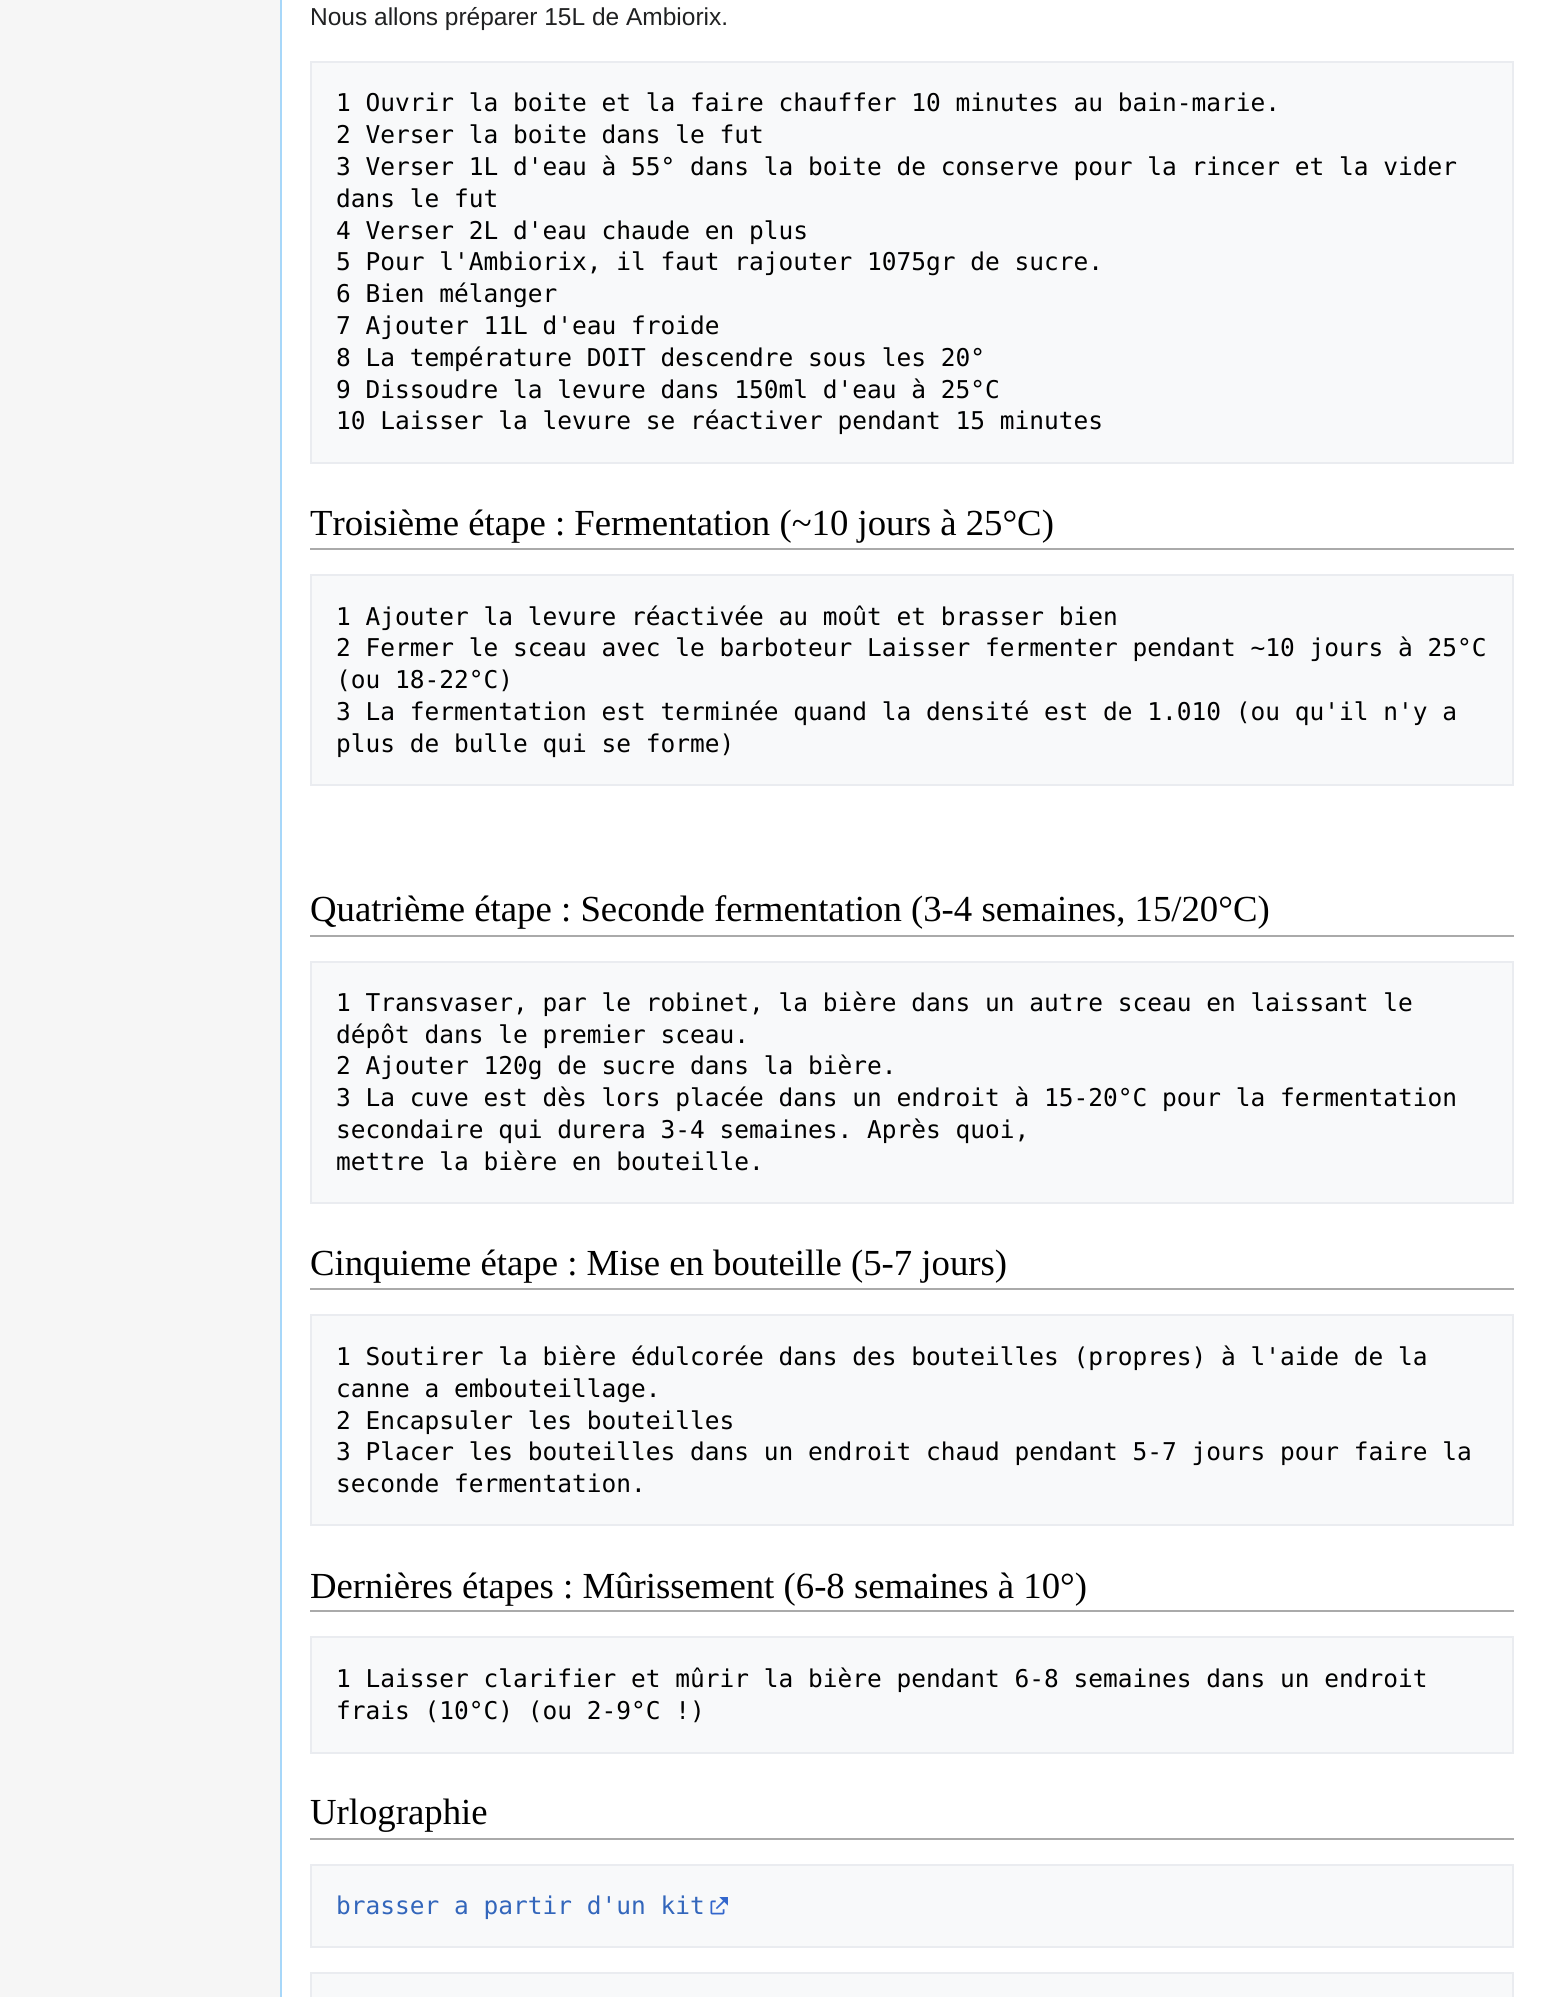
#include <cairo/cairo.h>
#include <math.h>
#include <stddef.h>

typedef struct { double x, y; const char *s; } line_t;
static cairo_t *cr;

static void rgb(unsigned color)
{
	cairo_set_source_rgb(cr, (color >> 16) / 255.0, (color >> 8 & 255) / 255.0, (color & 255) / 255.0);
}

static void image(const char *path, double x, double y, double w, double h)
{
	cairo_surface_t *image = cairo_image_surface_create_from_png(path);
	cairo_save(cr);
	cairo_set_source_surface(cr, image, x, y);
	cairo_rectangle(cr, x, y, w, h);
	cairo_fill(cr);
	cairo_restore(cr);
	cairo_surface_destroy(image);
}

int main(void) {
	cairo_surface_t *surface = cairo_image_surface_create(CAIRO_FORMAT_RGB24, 1541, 1997);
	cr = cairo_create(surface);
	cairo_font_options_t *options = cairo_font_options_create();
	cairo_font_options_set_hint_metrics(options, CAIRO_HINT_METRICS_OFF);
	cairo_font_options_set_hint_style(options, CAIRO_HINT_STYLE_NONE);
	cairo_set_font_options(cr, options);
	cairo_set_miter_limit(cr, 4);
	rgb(0xf6f6f6);
	cairo_paint(cr);
	rgb(0xffffff);
	cairo_rectangle(cr, 282, 0, 1259, 1997);
	cairo_fill(cr);
	rgb(0xa7d7f9);
	cairo_rectangle(cr, 280, 0, 2, 1997);
	cairo_fill(cr);
	rgb(0xf8f9fa);
	cairo_rectangle(cr, 311, 62, 1202, 401);
	cairo_fill_preserve(cr);
	rgb(0xeaecf0);
	cairo_stroke(cr);
	rgb(0xaaaaaa);
	cairo_rectangle(cr, 310, 548, 1204, 2);
	cairo_fill(cr);
	rgb(0xf8f9fa);
	cairo_rectangle(cr, 311, 575, 1202, 210);
	cairo_fill_preserve(cr);
	rgb(0xeaecf0);
	cairo_stroke(cr);
	rgb(0xaaaaaa);
	cairo_rectangle(cr, 310, 935, 1204, 2);
	cairo_fill(cr);
	rgb(0xf8f9fa);
	cairo_rectangle(cr, 311, 962, 1202, 241);
	cairo_fill_preserve(cr);
	rgb(0xeaecf0);
	cairo_stroke(cr);
	rgb(0xaaaaaa);
	cairo_rectangle(cr, 310, 1288, 1204, 2);
	cairo_fill(cr);
	rgb(0xf8f9fa);
	cairo_rectangle(cr, 311, 1315, 1202, 210);
	cairo_fill_preserve(cr);
	rgb(0xeaecf0);
	cairo_stroke(cr);
	rgb(0xaaaaaa);
	cairo_rectangle(cr, 310, 1610, 1204, 2);
	cairo_fill(cr);
	rgb(0xf8f9fa);
	cairo_rectangle(cr, 311, 1637, 1202, 116);
	cairo_fill_preserve(cr);
	rgb(0xeaecf0);
	cairo_stroke(cr);
	rgb(0xaaaaaa);
	cairo_rectangle(cr, 310, 1838, 1204, 2);
	cairo_fill(cr);
	rgb(0xf8f9fa);
	cairo_rectangle(cr, 311, 1865, 1202, 82);
	cairo_fill_preserve(cr);
	rgb(0xeaecf0);
	cairo_stroke(cr);
	image("img/1.png", 710, 1897, 18, 18);
	rgb(0xf8f9fa);
	cairo_rectangle(cr, 311, 1973, 1202, 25);
	cairo_fill_preserve(cr);
	rgb(0xeaecf0);
	cairo_stroke(cr);
	cairo_select_font_face(cr, "Liberation Sans", CAIRO_FONT_SLANT_NORMAL, CAIRO_FONT_WEIGHT_NORMAL);
	cairo_set_font_size(cr, 24.5);
	rgb(0x202122);
	cairo_move_to(cr, 310, 25);
	cairo_show_text(cr, "Nous allons préparer 15L de Ambiorix.");
	cairo_select_font_face(cr, "DejaVu Sans Mono", CAIRO_FONT_SLANT_NORMAL, CAIRO_FONT_WEIGHT_NORMAL);
	rgb(0x000000);
	{
		static const line_t items[] = {
			{336, 111, "1 Ouvrir la boite et la faire chauffer 10 minutes au bain-marie."},
			{336, 143, "2 Verser la boite dans le fut"},
			{336, 175, "3 Verser 1L d'eau à 55° dans la boite de conserve pour la rincer et la vider"},
			{336, 207, "dans le fut"},
			{336, 239, "4 Verser 2L d'eau chaude en plus"},
			{336, 270, "5 Pour l'Ambiorix, il faut rajouter 1075gr de sucre."},
			{336, 302, "6 Bien mélanger"},
			{336, 334, "7 Ajouter 11L d'eau froide"},
			{336, 366, "8 La température DOIT descendre sous les 20°"},
			{336, 398, "9 Dissoudre la levure dans 150ml d'eau à 25°C"},
			{336, 429, "10 Laisser la levure se réactiver pendant 15 minutes"},
		};
		for (size_t i = 0; i < sizeof items / sizeof *items; i++) {
			cairo_move_to(cr, items[i].x, items[i].y);
			cairo_show_text(cr, items[i].s);
		}
	}
	cairo_select_font_face(cr, "Liberation Serif", CAIRO_FONT_SLANT_NORMAL, CAIRO_FONT_WEIGHT_NORMAL);
	cairo_set_font_size(cr, 36.75);
	cairo_move_to(cr, 310, 535);
	cairo_show_text(cr, "Troisième étape : Fermentation (~10 jours à 25°C)");
	cairo_select_font_face(cr, "DejaVu Sans Mono", CAIRO_FONT_SLANT_NORMAL, CAIRO_FONT_WEIGHT_NORMAL);
	cairo_set_font_size(cr, 24.5);
	{
		static const line_t items[] = {
			{336, 625, "1 Ajouter la levure réactivée au moût et brasser bien"},
			{336, 656, "2 Fermer le sceau avec le barboteur Laisser fermenter pendant ~10 jours à 25°C"},
			{336, 688, "(ou 18-22°C)"},
			{336, 720, "3 La fermentation est terminée quand la densité est de 1.010 (ou qu'il n'y a"},
			{336, 752, "plus de bulle qui se forme)"},
		};
		for (size_t i = 0; i < sizeof items / sizeof *items; i++) {
			cairo_move_to(cr, items[i].x, items[i].y);
			cairo_show_text(cr, items[i].s);
		}
	}
	cairo_select_font_face(cr, "Liberation Serif", CAIRO_FONT_SLANT_NORMAL, CAIRO_FONT_WEIGHT_NORMAL);
	cairo_set_font_size(cr, 36.75);
	cairo_move_to(cr, 310, 921);
	cairo_show_text(cr, "Quatrième étape : Seconde fermentation (3-4 semaines, 15/20°C)");
	cairo_select_font_face(cr, "DejaVu Sans Mono", CAIRO_FONT_SLANT_NORMAL, CAIRO_FONT_WEIGHT_NORMAL);
	cairo_set_font_size(cr, 24.5);
	{
		static const line_t items[] = {
			{336, 1011, "1 Transvaser, par le robinet, la bière dans un autre sceau en laissant le"},
			{336, 1043, "dépôt dans le premier sceau."},
			{336, 1074, "2 Ajouter 120g de sucre dans la bière."},
			{336, 1106, "3 La cuve est dès lors placée dans un endroit à 15-20°C pour la fermentation"},
			{336, 1138, "secondaire qui durera 3-4 semaines. Après quoi,"},
			{336, 1170, "mettre la bière en bouteille."},
		};
		for (size_t i = 0; i < sizeof items / sizeof *items; i++) {
			cairo_move_to(cr, items[i].x, items[i].y);
			cairo_show_text(cr, items[i].s);
		}
	}
	cairo_select_font_face(cr, "Liberation Serif", CAIRO_FONT_SLANT_NORMAL, CAIRO_FONT_WEIGHT_NORMAL);
	cairo_set_font_size(cr, 36.75);
	cairo_move_to(cr, 310, 1275);
	cairo_show_text(cr, "Cinquieme étape : Mise en bouteille (5-7 jours)");
	cairo_select_font_face(cr, "DejaVu Sans Mono", CAIRO_FONT_SLANT_NORMAL, CAIRO_FONT_WEIGHT_NORMAL);
	cairo_set_font_size(cr, 24.5);
	{
		static const line_t items[] = {
			{336, 1365, "1 Soutirer la bière édulcorée dans des bouteilles (propres) à l'aide de la"},
			{336, 1397, "canne a embouteillage."},
			{336, 1429, "2 Encapsuler les bouteilles"},
			{336, 1460, "3 Placer les bouteilles dans un endroit chaud pendant 5-7 jours pour faire la"},
			{336, 1492, "seconde fermentation."},
		};
		for (size_t i = 0; i < sizeof items / sizeof *items; i++) {
			cairo_move_to(cr, items[i].x, items[i].y);
			cairo_show_text(cr, items[i].s);
		}
	}
	cairo_select_font_face(cr, "Liberation Serif", CAIRO_FONT_SLANT_NORMAL, CAIRO_FONT_WEIGHT_NORMAL);
	cairo_set_font_size(cr, 36.75);
	cairo_move_to(cr, 310, 1598);
	cairo_show_text(cr, "Dernières étapes : Mûrissement (6-8 semaines à 10°)");
	cairo_select_font_face(cr, "DejaVu Sans Mono", CAIRO_FONT_SLANT_NORMAL, CAIRO_FONT_WEIGHT_NORMAL);
	cairo_set_font_size(cr, 24.5);
	cairo_move_to(cr, 336, 1687);
	cairo_show_text(cr, "1 Laisser clarifier et mûrir la bière pendant 6-8 semaines dans un endroit");
	cairo_move_to(cr, 336, 1719);
	cairo_show_text(cr, "frais (10°C) (ou 2-9°C !)");
	cairo_select_font_face(cr, "Liberation Serif", CAIRO_FONT_SLANT_NORMAL, CAIRO_FONT_WEIGHT_NORMAL);
	cairo_set_font_size(cr, 36.75);
	cairo_move_to(cr, 310, 1824);
	cairo_show_text(cr, "Urlographie");
	cairo_select_font_face(cr, "DejaVu Sans Mono", CAIRO_FONT_SLANT_NORMAL, CAIRO_FONT_WEIGHT_NORMAL);
	cairo_set_font_size(cr, 24.5);
	rgb(0x3366bb);
	cairo_move_to(cr, 336, 1914);
	cairo_show_text(cr, "brasser a partir d'un kit");
	cairo_surface_write_to_png(surface, "page.png");
	cairo_font_options_destroy(options);
	cairo_destroy(cr);
	cairo_surface_destroy(surface);
	return 0;
}
